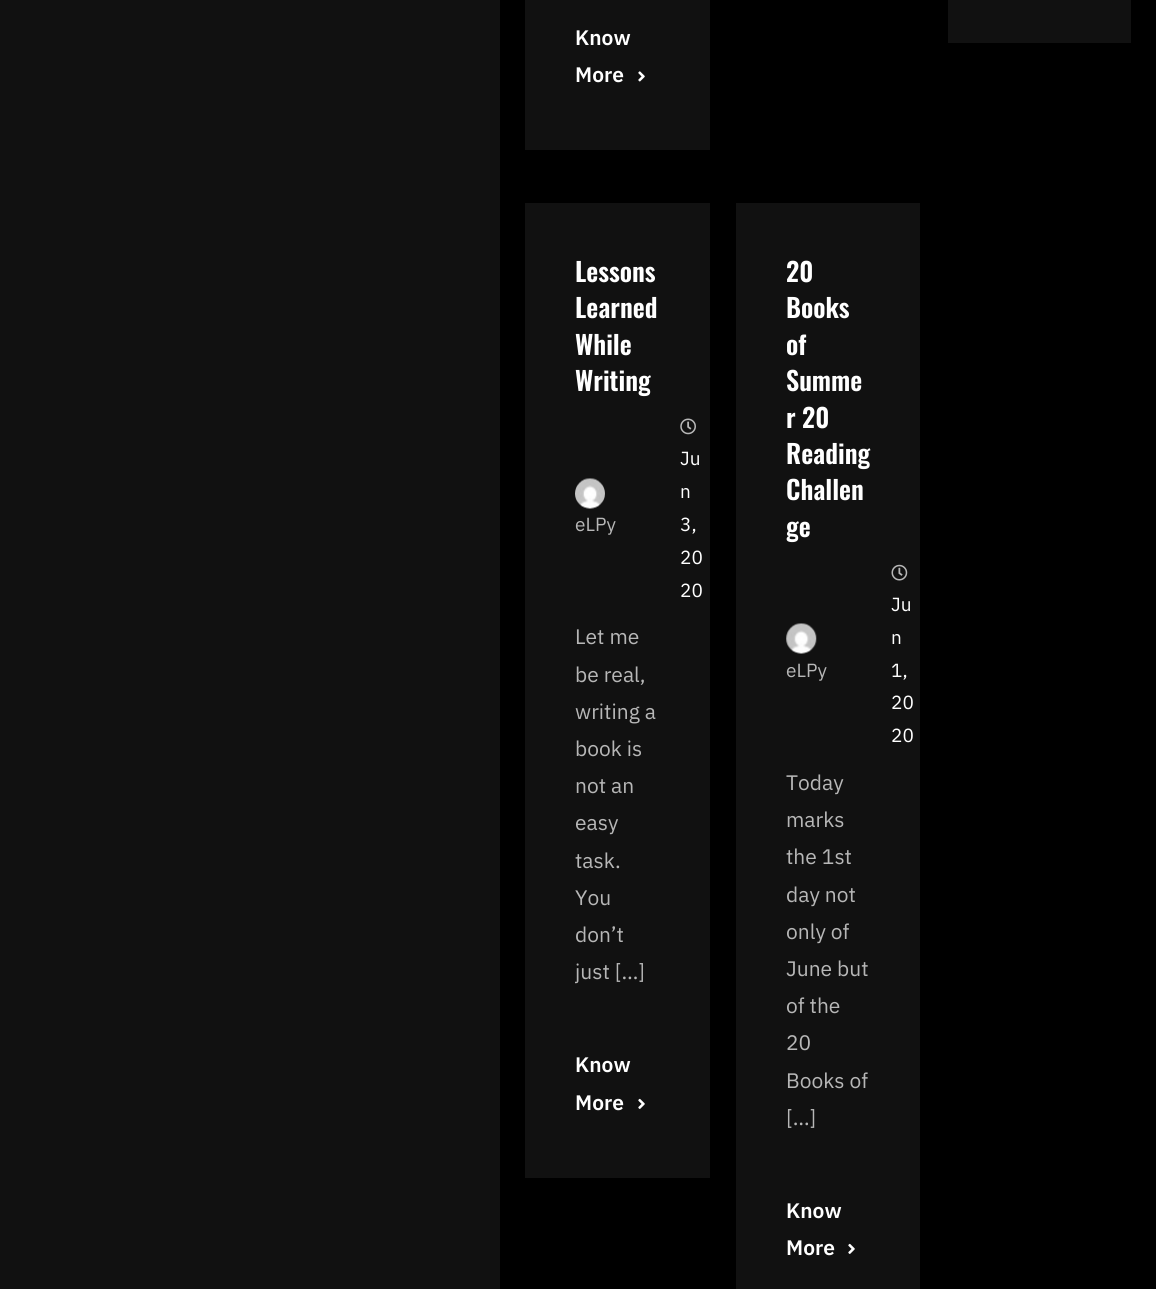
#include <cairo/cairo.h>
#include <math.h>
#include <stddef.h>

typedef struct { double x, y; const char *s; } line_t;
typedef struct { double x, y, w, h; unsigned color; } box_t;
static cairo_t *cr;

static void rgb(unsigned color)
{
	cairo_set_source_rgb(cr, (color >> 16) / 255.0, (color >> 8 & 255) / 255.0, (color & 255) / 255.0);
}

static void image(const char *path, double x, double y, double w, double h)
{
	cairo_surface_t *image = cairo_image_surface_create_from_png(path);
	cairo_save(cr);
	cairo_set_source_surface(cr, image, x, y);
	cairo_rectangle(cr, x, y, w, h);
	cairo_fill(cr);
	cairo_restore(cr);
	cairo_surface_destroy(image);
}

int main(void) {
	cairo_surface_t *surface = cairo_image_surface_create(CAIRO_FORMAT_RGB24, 1156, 1289);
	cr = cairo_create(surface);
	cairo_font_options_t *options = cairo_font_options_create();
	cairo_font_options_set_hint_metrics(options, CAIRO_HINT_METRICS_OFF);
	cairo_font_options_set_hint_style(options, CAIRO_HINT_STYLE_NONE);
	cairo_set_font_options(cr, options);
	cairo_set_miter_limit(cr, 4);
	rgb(0x111111);
	cairo_paint(cr);
	{
		static const box_t items[] = {
			{500, 0, 656, 1289, 0x000000},
			{948, 0, 183, 43, 0x111111},
			{525, 0, 185, 150, 0x111111},
		};
		for (size_t i = 0; i < sizeof items / sizeof *items; i++) {
			rgb(items[i].color);
			cairo_rectangle(cr, items[i].x, items[i].y, items[i].w, items[i].h);
			cairo_fill(cr);
		}
	}
	image("img/1.png", 638, 71, 7, 11);
	cairo_rectangle(cr, 525, 203, 185, 975);
	cairo_fill(cr);
	image("img/2.png", 575, 478, 30, 31);
	image("img/3.png", 680, 418, 16, 17);
	image("img/4.png", 638, 1098, 7, 11);
	cairo_rectangle(cr, 736, 203, 184, 1086);
	cairo_fill(cr);
	image("img/5.png", 786, 623, 31, 31);
	image("img/6.png", 891, 564, 17, 17);
	image("img/4.png", 848, 1243, 7, 11);
	cairo_select_font_face(cr, "IBM Plex Sans SemiBold", CAIRO_FONT_SLANT_NORMAL, CAIRO_FONT_WEIGHT_NORMAL);
	cairo_set_font_size(cr, 21);
	rgb(0xffffff);
	cairo_move_to(cr, 575, 45);
	cairo_show_text(cr, "Know");
	cairo_move_to(cr, 575, 82);
	cairo_show_text(cr, "More");
	cairo_select_font_face(cr, "Oswald SemiBold", CAIRO_FONT_SLANT_NORMAL, CAIRO_FONT_WEIGHT_NORMAL);
	cairo_set_font_size(cr, 26);
	{
		static const line_t items[] = {
			{575, 282, "Lessons"},
			{575, 318, "Learned"},
			{575, 355, "While"},
			{575, 391, "Writing"},
		};
		for (size_t i = 0; i < sizeof items / sizeof *items; i++) {
			cairo_move_to(cr, items[i].x, items[i].y);
			cairo_show_text(cr, items[i].s);
		}
	}
	cairo_select_font_face(cr, "IBM Plex Sans", CAIRO_FONT_SLANT_NORMAL, CAIRO_FONT_WEIGHT_NORMAL);
	cairo_set_font_size(cr, 19);
	rgb(0xb7b7b7);
	cairo_move_to(cr, 575, 531);
	cairo_show_text(cr, "eLPy");
	rgb(0xffffff);
	{
		static const line_t items[] = {
			{680, 465, "Ju"},
			{680, 498, "n"},
			{680, 531, "3,"},
			{680, 564, "20"},
			{680, 597, "20"},
		};
		for (size_t i = 0; i < sizeof items / sizeof *items; i++) {
			cairo_move_to(cr, items[i].x, items[i].y);
			cairo_show_text(cr, items[i].s);
		}
	}
	cairo_set_font_size(cr, 21);
	rgb(0xb7b7b7);
	{
		static const line_t items[] = {
			{575, 644, "Let me"},
			{575, 682, "be real,"},
			{575, 719, "writing a"},
			{575, 756, "book is"},
			{575, 793, "not an"},
			{575, 830, "easy"},
			{575, 868, "task."},
			{575, 905, "You"},
			{575, 942, "don’t"},
			{575, 979, "just […]"},
		};
		for (size_t i = 0; i < sizeof items / sizeof *items; i++) {
			cairo_move_to(cr, items[i].x, items[i].y);
			cairo_show_text(cr, items[i].s);
		}
	}
	cairo_select_font_face(cr, "IBM Plex Sans SemiBold", CAIRO_FONT_SLANT_NORMAL, CAIRO_FONT_WEIGHT_NORMAL);
	rgb(0xffffff);
	cairo_move_to(cr, 575, 1072);
	cairo_show_text(cr, "Know");
	cairo_move_to(cr, 575, 1110);
	cairo_show_text(cr, "More");
	cairo_select_font_face(cr, "Oswald SemiBold", CAIRO_FONT_SLANT_NORMAL, CAIRO_FONT_WEIGHT_NORMAL);
	cairo_set_font_size(cr, 26);
	{
		static const line_t items[] = {
			{786, 282, "20"},
			{786, 318, "Books"},
			{786, 355, "of"},
			{786, 391, "Summe"},
			{786, 428, "r 20"},
			{786, 464, "Reading"},
			{786, 500, "Challen"},
			{786, 537, "ge"},
		};
		for (size_t i = 0; i < sizeof items / sizeof *items; i++) {
			cairo_move_to(cr, items[i].x, items[i].y);
			cairo_show_text(cr, items[i].s);
		}
	}
	cairo_select_font_face(cr, "IBM Plex Sans", CAIRO_FONT_SLANT_NORMAL, CAIRO_FONT_WEIGHT_NORMAL);
	cairo_set_font_size(cr, 19);
	rgb(0xb7b7b7);
	cairo_move_to(cr, 786, 677);
	cairo_show_text(cr, "eLPy");
	rgb(0xffffff);
	{
		static const line_t items[] = {
			{891, 611, "Ju"},
			{891, 644, "n"},
			{891, 677, "1,"},
			{891, 709, "20"},
			{891, 742, "20"},
		};
		for (size_t i = 0; i < sizeof items / sizeof *items; i++) {
			cairo_move_to(cr, items[i].x, items[i].y);
			cairo_show_text(cr, items[i].s);
		}
	}
	cairo_set_font_size(cr, 21);
	rgb(0xb7b7b7);
	{
		static const line_t items[] = {
			{786, 790, "Today"},
			{786, 827, "marks"},
			{786, 864, "the 1st"},
			{786, 902, "day not"},
			{786, 939, "only of"},
			{786, 976, "June but"},
			{786, 1013, "of the"},
			{786, 1050, "20"},
			{786, 1088, "Books of"},
			{786, 1125, "[…]"},
		};
		for (size_t i = 0; i < sizeof items / sizeof *items; i++) {
			cairo_move_to(cr, items[i].x, items[i].y);
			cairo_show_text(cr, items[i].s);
		}
	}
	cairo_select_font_face(cr, "IBM Plex Sans SemiBold", CAIRO_FONT_SLANT_NORMAL, CAIRO_FONT_WEIGHT_NORMAL);
	rgb(0xffffff);
	cairo_move_to(cr, 786, 1218);
	cairo_show_text(cr, "Know");
	cairo_move_to(cr, 786, 1255);
	cairo_show_text(cr, "More");
	cairo_surface_write_to_png(surface, "page.png");
	cairo_font_options_destroy(options);
	cairo_destroy(cr);
	cairo_surface_destroy(surface);
	return 0;
}
